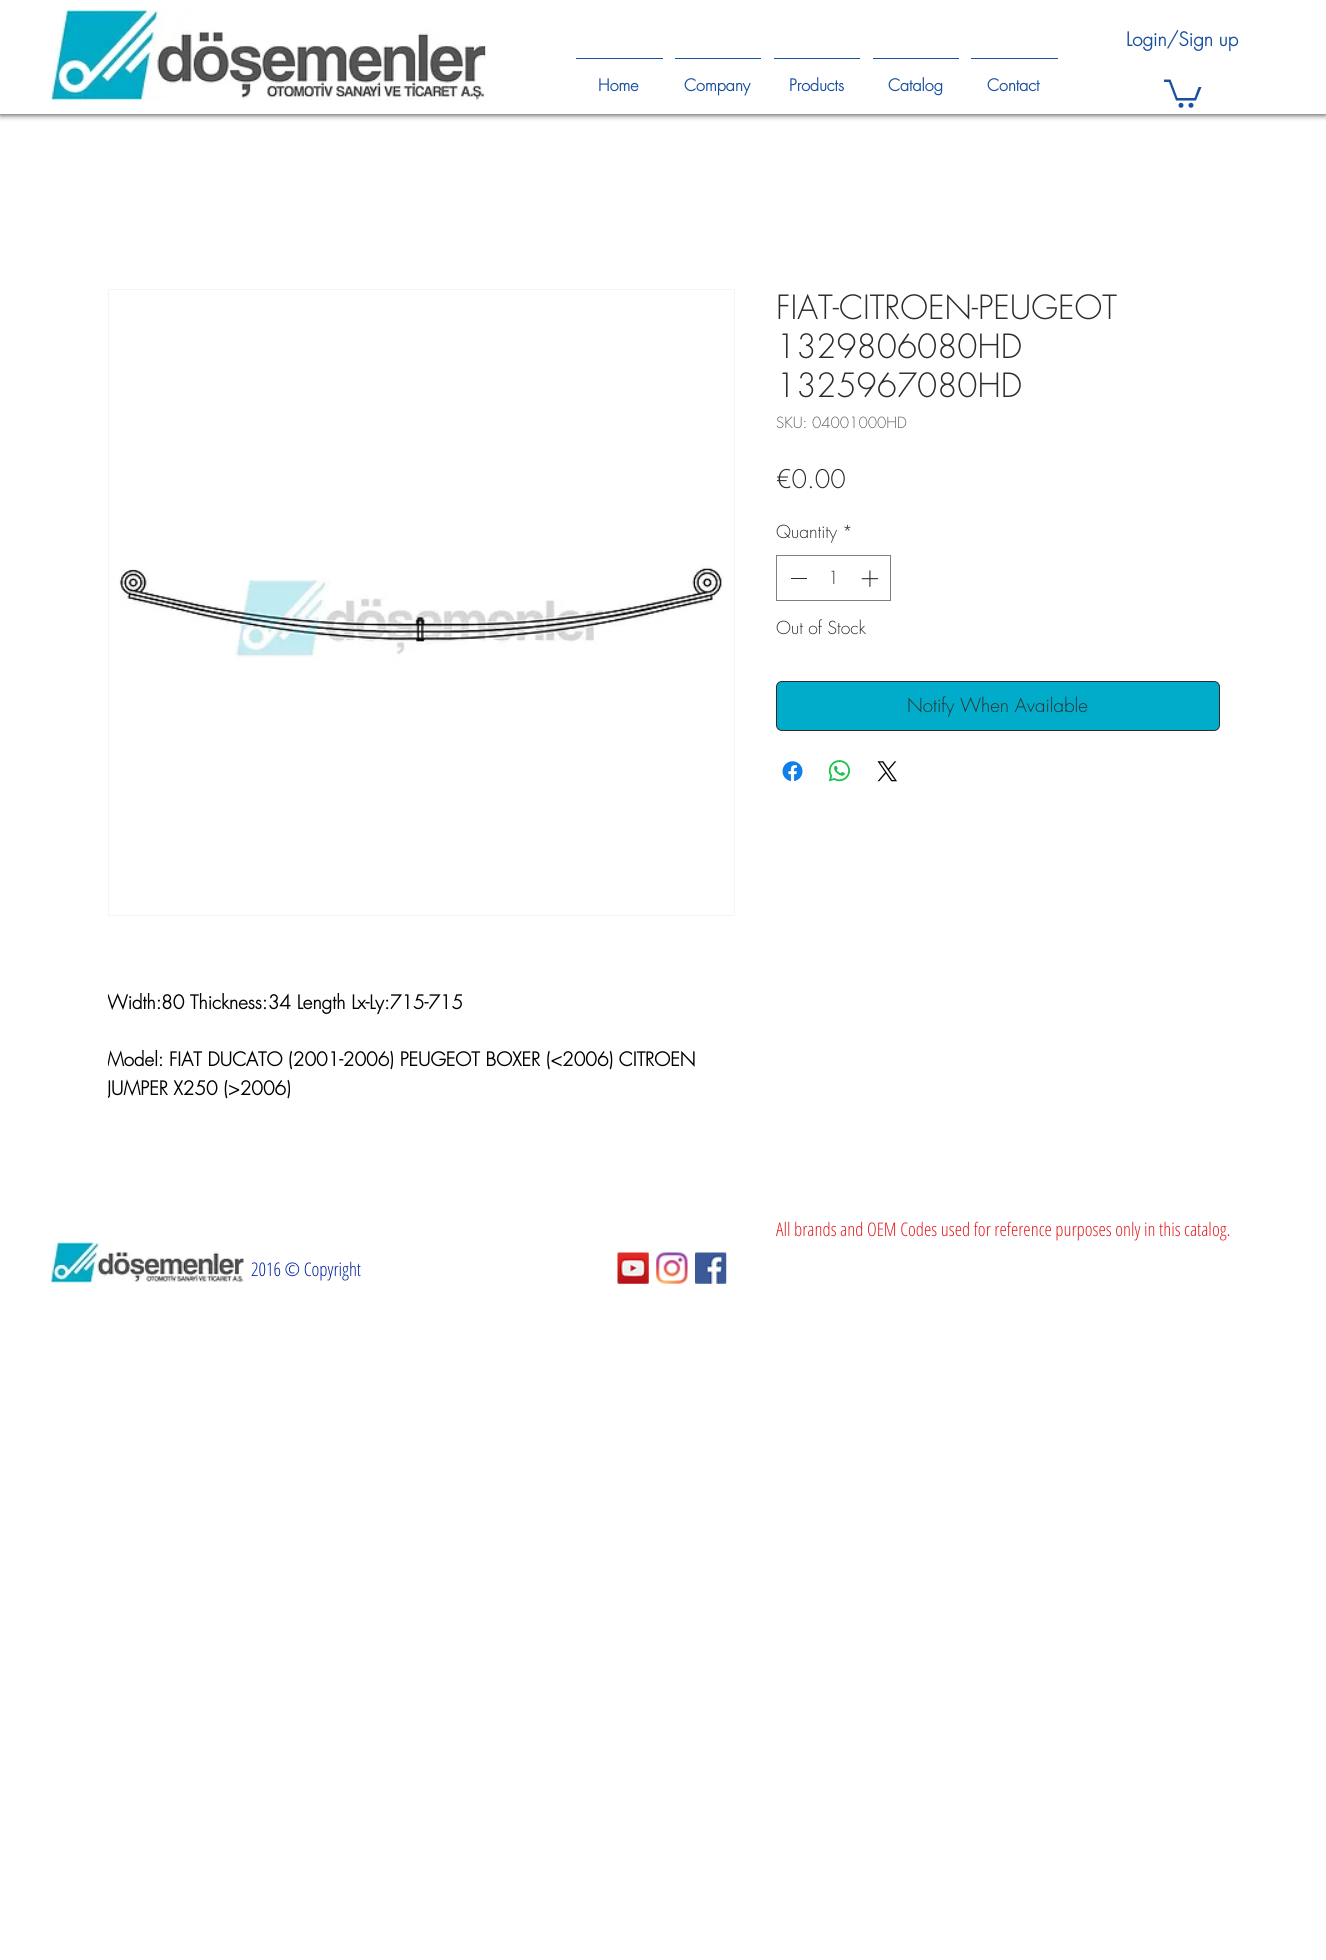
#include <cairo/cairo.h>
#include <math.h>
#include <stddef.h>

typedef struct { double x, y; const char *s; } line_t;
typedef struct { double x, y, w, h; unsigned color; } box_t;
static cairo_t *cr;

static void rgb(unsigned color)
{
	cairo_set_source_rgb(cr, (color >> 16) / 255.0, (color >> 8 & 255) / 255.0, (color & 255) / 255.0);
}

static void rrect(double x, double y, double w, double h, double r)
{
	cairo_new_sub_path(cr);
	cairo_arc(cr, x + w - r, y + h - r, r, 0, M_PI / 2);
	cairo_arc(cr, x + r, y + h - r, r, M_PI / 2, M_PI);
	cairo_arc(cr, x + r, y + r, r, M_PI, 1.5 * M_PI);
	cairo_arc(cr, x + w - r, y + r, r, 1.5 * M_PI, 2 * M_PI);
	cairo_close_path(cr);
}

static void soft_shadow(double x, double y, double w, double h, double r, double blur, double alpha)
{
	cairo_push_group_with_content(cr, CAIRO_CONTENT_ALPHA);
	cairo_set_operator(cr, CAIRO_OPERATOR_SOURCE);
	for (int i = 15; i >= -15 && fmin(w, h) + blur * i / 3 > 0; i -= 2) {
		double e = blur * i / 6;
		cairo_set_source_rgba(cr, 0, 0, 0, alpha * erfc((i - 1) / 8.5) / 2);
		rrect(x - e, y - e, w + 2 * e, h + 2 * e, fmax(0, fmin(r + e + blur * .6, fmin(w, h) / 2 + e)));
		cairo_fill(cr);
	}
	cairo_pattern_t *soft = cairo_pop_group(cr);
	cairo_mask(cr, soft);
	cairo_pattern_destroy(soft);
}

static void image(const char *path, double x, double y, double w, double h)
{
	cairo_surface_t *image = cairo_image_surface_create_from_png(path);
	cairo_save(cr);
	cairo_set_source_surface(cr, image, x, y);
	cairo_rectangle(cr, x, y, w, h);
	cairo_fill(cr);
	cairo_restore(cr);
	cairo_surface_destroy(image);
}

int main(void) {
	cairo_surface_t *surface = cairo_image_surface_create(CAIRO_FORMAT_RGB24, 1326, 1960);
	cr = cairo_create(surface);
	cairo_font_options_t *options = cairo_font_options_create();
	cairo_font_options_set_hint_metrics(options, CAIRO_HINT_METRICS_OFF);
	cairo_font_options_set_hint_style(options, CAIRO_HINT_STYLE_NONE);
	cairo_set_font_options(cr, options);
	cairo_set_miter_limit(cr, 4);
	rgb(0xffffff);
	cairo_paint(cr);
	rgb(0x000000);
	soft_shadow(0, 1, 1326, 114, 0, 3, 0.7);
	rgb(0xffffff);
	cairo_rectangle(cr, 0, 0, 1326, 114);
	cairo_fill(cr);
	image("img/1.png", 51, 10, 435, 90);
	{
		static const box_t items[] = {
			{576, 58, 87, 1, 0x1951a0},
			{675, 58, 86, 1, 0x1951a0},
			{774, 58, 86, 1, 0x1951a0},
			{873, 58, 86, 1, 0x1951a0},
			{971, 58, 87, 1, 0x1951a0},
		};
		for (size_t i = 0; i < sizeof items / sizeof *items; i++) {
			rgb(items[i].color);
			cairo_rectangle(cr, items[i].x, items[i].y, items[i].w, items[i].h);
			cairo_fill(cr);
		}
	}
	cairo_new_path(cr);
	cairo_move_to(cr, 1201.5, 87);
	cairo_line_to(cr, 1196, 100.5);
	cairo_line_to(cr, 1176, 100.5);
	cairo_line_to(cr, 1169, 82);
	cairo_line_to(cr, 1164, 82);
	cairo_line_to(cr, 1164, 79.5);
	cairo_line_to(cr, 1170.5, 79.5);
	cairo_line_to(cr, 1177.5, 98);
	cairo_line_to(cr, 1194.5, 98);
	cairo_line_to(cr, 1198.5, 87);
	cairo_fill(cr);
	cairo_arc(cr, 1191, 105.3, 2.5, 0, 2 * M_PI);
	cairo_fill(cr);
	cairo_arc(cr, 1181, 105.3, 2.5, 0, 2 * M_PI);
	cairo_fill(cr);
	cairo_rectangle(cr, 776.5, 555.5, 114, 45);
	rgb(0x808080);
	cairo_set_line_width(cr, 1);
	cairo_stroke(cr);
	rgb(0x2c2c2b);
	cairo_rectangle(cr, 791, 578, 16, 1);
	cairo_fill(cr);
	image("img/2.png", 861, 570, 18, 17);
	rgb(0x00acc9);
	rrect(776.5, 681.5, 443, 49, 5.5);
	cairo_fill_preserve(cr);
	rgb(0x2c2c2b);
	cairo_stroke(cr);
	image("img/3.png", 782, 761, 21, 21);
	image("img/4.png", 828, 760, 22, 22);
	image("img/5.png", 877, 761, 20, 21);
	cairo_rectangle(cr, 108.5, 289.5, 626, 626);
	rgb(0xf6f5f5);
	cairo_stroke(cr);
	image("img/6.png", 119, 565, 605, 96);
	image("img/7.png", 51, 1242, 193, 41);
	image("img/8.png", 617, 1252, 32, 32);
	image("img/9.png", 656, 1252, 32, 32);
	image("img/10.png", 695, 1252, 32, 32);
	cairo_select_font_face(cr, "futura", CAIRO_FONT_SLANT_NORMAL, CAIRO_FONT_WEIGHT_BOLD);
	cairo_set_font_size(cr, 18.75);
	rgb(0x1951a0);
	cairo_move_to(cr, 1126, 46);
	cairo_show_text(cr, "Login/Sign up");
	cairo_set_font_size(cr, 16.25);
	{
		static const line_t items[] = {
			{598, 91, "Home"},
			{684, 91, "Company"},
			{789, 91, "Products"},
			{888, 91, "Catalog"},
			{987, 91, "Contact"},
		};
		for (size_t i = 0; i < sizeof items / sizeof *items; i++) {
			cairo_move_to(cr, items[i].x, items[i].y);
			cairo_show_text(cr, items[i].s);
		}
	}
	cairo_select_font_face(cr, "futura Light", CAIRO_FONT_SLANT_NORMAL, CAIRO_FONT_WEIGHT_NORMAL);
	cairo_set_font_size(cr, 32.5);
	rgb(0x2c2c2b);
	{
		static const line_t items[] = {
			{776, 319, "FIAT-CITROEN-PEUGEOT"},
			{776, 358, "1329806080HD"},
			{776, 397, "1325967080HD"},
		};
		for (size_t i = 0; i < sizeof items / sizeof *items; i++) {
			cairo_move_to(cr, items[i].x, items[i].y);
			cairo_show_text(cr, items[i].s);
		}
	}
	cairo_set_font_size(cr, 15);
	rgb(0x5e5d5d);
	cairo_move_to(cr, 776, 428);
	cairo_show_text(cr, "SKU: 04001000HD");
	cairo_set_font_size(cr, 25);
	rgb(0x2c2c2b);
	cairo_move_to(cr, 776, 488);
	cairo_show_text(cr, "€0.00");
	cairo_set_font_size(cr, 17.5);
	{
		static const line_t items[] = {
			{776, 538, "Quantity"},
			{842, 538, "*"},
			{828, 584, "1"},
			{776, 634, "Out of Stock"},
		};
		for (size_t i = 0; i < sizeof items / sizeof *items; i++) {
			cairo_move_to(cr, items[i].x, items[i].y);
			cairo_show_text(cr, items[i].s);
		}
	}
	cairo_set_font_size(cr, 18.75);
	cairo_move_to(cr, 907, 712);
	cairo_show_text(cr, "Notify When Available");
	cairo_save(cr);
	cairo_rectangle(cr, 108, 989, 625, 144);
	cairo_clip(cr);
	cairo_select_font_face(cr, "futura", CAIRO_FONT_SLANT_NORMAL, CAIRO_FONT_WEIGHT_BOLD);
	rgb(0x000000);
	cairo_move_to(cr, 107, 1009);
	cairo_show_text(cr, "Width:");
	cairo_restore(cr);
	cairo_select_font_face(cr, "futura", CAIRO_FONT_SLANT_NORMAL, CAIRO_FONT_WEIGHT_BOLD);
	rgb(0x000000);
	cairo_move_to(cr, 161, 1009);
	cairo_show_text(cr, "80 Thickness:34 Length Lx-Ly:715-715");
	cairo_save(cr);
	cairo_rectangle(cr, 108, 989, 625, 144);
	cairo_clip(cr);
	cairo_move_to(cr, 107, 1066);
	cairo_show_text(cr, "Model:");
	cairo_restore(cr);
	cairo_move_to(cr, 169, 1066);
	cairo_show_text(cr, "FIAT DUCATO (2001-2006) PEUGEOT BOXER (<2006) CITROEN");
	cairo_save(cr);
	cairo_rectangle(cr, 108, 989, 625, 144);
	cairo_clip(cr);
	cairo_move_to(cr, 107, 1095);
	cairo_show_text(cr, "JUMPER X250 (>2006)");
	cairo_restore(cr);
	cairo_select_font_face(cr, "Open Sans Condensed Light", CAIRO_FONT_SLANT_NORMAL, CAIRO_FONT_WEIGHT_NORMAL);
	rgb(0xe21c21);
	cairo_move_to(cr, 776, 1236);
	cairo_show_text(cr, "All brands and OEM Codes used for reference purposes only in this catalog.");
	rgb(0x00209f);
	cairo_move_to(cr, 251, 1276);
	cairo_show_text(cr, "2016 © Copyright");
	cairo_surface_write_to_png(surface, "page.png");
	cairo_font_options_destroy(options);
	cairo_destroy(cr);
	cairo_surface_destroy(surface);
	return 0;
}
